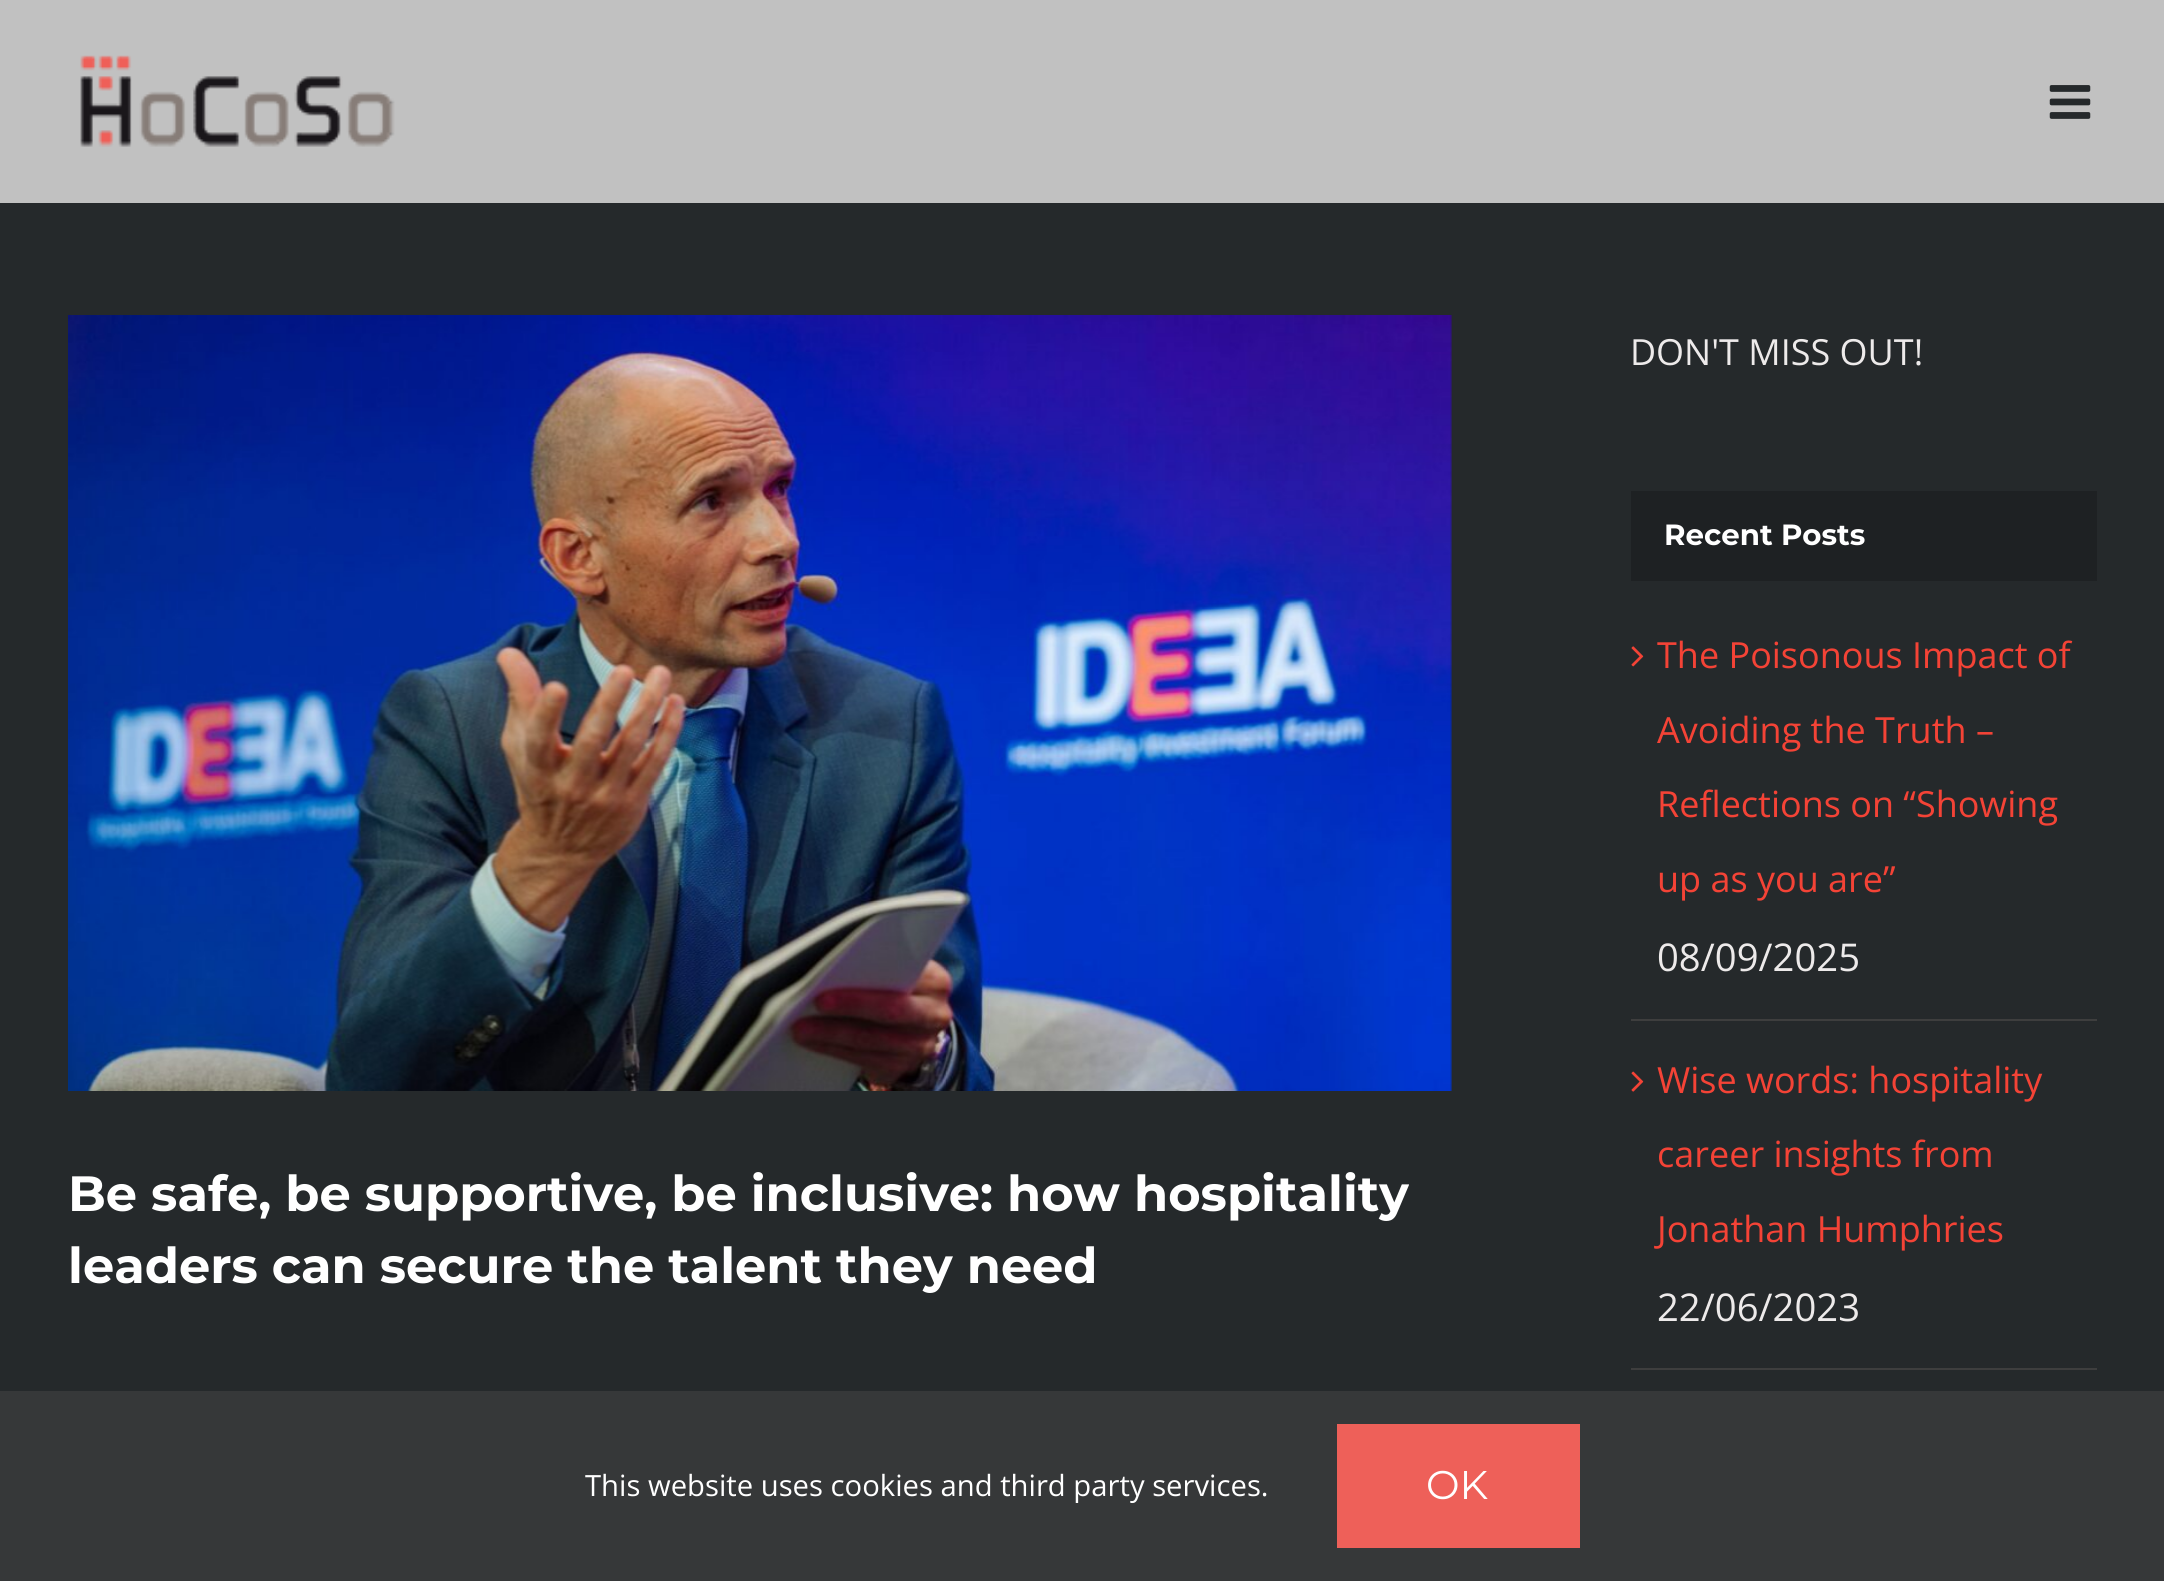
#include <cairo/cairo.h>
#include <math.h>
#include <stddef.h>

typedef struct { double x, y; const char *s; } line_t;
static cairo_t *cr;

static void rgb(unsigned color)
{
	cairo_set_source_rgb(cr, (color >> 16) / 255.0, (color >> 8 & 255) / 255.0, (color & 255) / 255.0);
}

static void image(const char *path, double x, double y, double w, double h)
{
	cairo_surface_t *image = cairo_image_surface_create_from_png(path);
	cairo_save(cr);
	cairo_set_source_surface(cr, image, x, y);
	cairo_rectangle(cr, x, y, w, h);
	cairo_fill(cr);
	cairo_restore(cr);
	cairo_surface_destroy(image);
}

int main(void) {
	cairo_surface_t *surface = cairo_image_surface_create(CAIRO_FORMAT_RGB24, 2164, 1581);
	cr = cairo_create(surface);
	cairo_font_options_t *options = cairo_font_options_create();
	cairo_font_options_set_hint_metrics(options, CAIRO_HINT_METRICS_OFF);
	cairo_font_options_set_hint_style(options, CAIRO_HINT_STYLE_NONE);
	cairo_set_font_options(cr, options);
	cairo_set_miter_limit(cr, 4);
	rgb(0x25292b);
	cairo_paint(cr);
	rgb(0xc1c1c1);
	cairo_rectangle(cr, 0, 0, 2164, 203);
	cairo_fill(cr);
	image("img/1.png", 80, 55, 315, 92);
	image("img/2.png", 2049, 85, 42, 34);
	image("img/3.png", 68, 315, 1384, 776);
	rgb(0x1e2123);
	cairo_rectangle(cr, 1631, 491, 466, 90);
	cairo_fill(cr);
	rgb(0x3e3e3e);
	cairo_rectangle(cr, 1631, 1019, 466, 2);
	cairo_fill(cr);
	image("img/4.png", 1631, 646, 13, 21);
	cairo_rectangle(cr, 1631, 1368, 466, 2);
	cairo_fill(cr);
	image("img/5.png", 1631, 1071, 13, 21);
	rgb(0x363839);
	cairo_rectangle(cr, 0, 1391, 2164, 190);
	cairo_fill(cr);
	rgb(0xee6059);
	cairo_rectangle(cr, 1337, 1424, 243, 124);
	cairo_fill(cr);
	cairo_select_font_face(cr, "Montserrat", CAIRO_FONT_SLANT_NORMAL, CAIRO_FONT_WEIGHT_BOLD);
	cairo_set_font_size(cr, 49.5);
	rgb(0xffffff);
	cairo_move_to(cr, 68, 1211);
	cairo_show_text(cr, "Be safe, be supportive, be inclusive: how hospitality");
	cairo_move_to(cr, 68, 1283);
	cairo_show_text(cr, "leaders can secure the talent they need");
	cairo_select_font_face(cr, "Open Sans", CAIRO_FONT_SLANT_NORMAL, CAIRO_FONT_WEIGHT_NORMAL);
	cairo_set_font_size(cr, 36);
	rgb(0xedeaea);
	cairo_move_to(cr, 1630, 365);
	cairo_show_text(cr, "DON'T MISS OUT!");
	cairo_select_font_face(cr, "Montserrat", CAIRO_FONT_SLANT_NORMAL, CAIRO_FONT_WEIGHT_BOLD);
	cairo_set_font_size(cr, 29.25);
	rgb(0xffffff);
	cairo_move_to(cr, 1664, 545);
	cairo_show_text(cr, "Recent Posts");
	cairo_select_font_face(cr, "Open Sans", CAIRO_FONT_SLANT_NORMAL, CAIRO_FONT_WEIGHT_NORMAL);
	cairo_set_font_size(cr, 36);
	rgb(0xf44336);
	{
		static const line_t items[] = {
			{1657, 668, "The Poisonous Impact of"},
			{1657, 743, "Avoiding the Truth –"},
			{1657, 817, "Reflections on “Showing"},
			{1657, 892, "up as you are”"},
		};
		for (size_t i = 0; i < sizeof items / sizeof *items; i++) {
			cairo_move_to(cr, items[i].x, items[i].y);
			cairo_show_text(cr, items[i].s);
		}
	}
	cairo_set_font_size(cr, 38.25);
	rgb(0xedeaea);
	cairo_move_to(cr, 1657, 971);
	cairo_show_text(cr, "08/09/2025");
	cairo_set_font_size(cr, 36);
	rgb(0xf44336);
	{
		static const line_t items[] = {
			{1657, 1093, "Wise words: hospitality"},
			{1657, 1167, "career insights from"},
			{1657, 1242, "Jonathan Humphries"},
		};
		for (size_t i = 0; i < sizeof items / sizeof *items; i++) {
			cairo_move_to(cr, items[i].x, items[i].y);
			cairo_show_text(cr, items[i].s);
		}
	}
	cairo_set_font_size(cr, 38.25);
	rgb(0xedeaea);
	cairo_move_to(cr, 1657, 1321);
	cairo_show_text(cr, "22/06/2023");
	cairo_set_font_size(cr, 29.25);
	rgb(0xffffff);
	cairo_move_to(cr, 585, 1496);
	cairo_show_text(cr, "This website uses cookies and third party services.");
	cairo_select_font_face(cr, "Montserrat", CAIRO_FONT_SLANT_NORMAL, CAIRO_FONT_WEIGHT_NORMAL);
	cairo_set_font_size(cr, 40);
	cairo_move_to(cr, 1426, 1499);
	cairo_show_text(cr, "OK");
	cairo_surface_write_to_png(surface, "page.png");
	cairo_font_options_destroy(options);
	cairo_destroy(cr);
	cairo_surface_destroy(surface);
	return 0;
}
